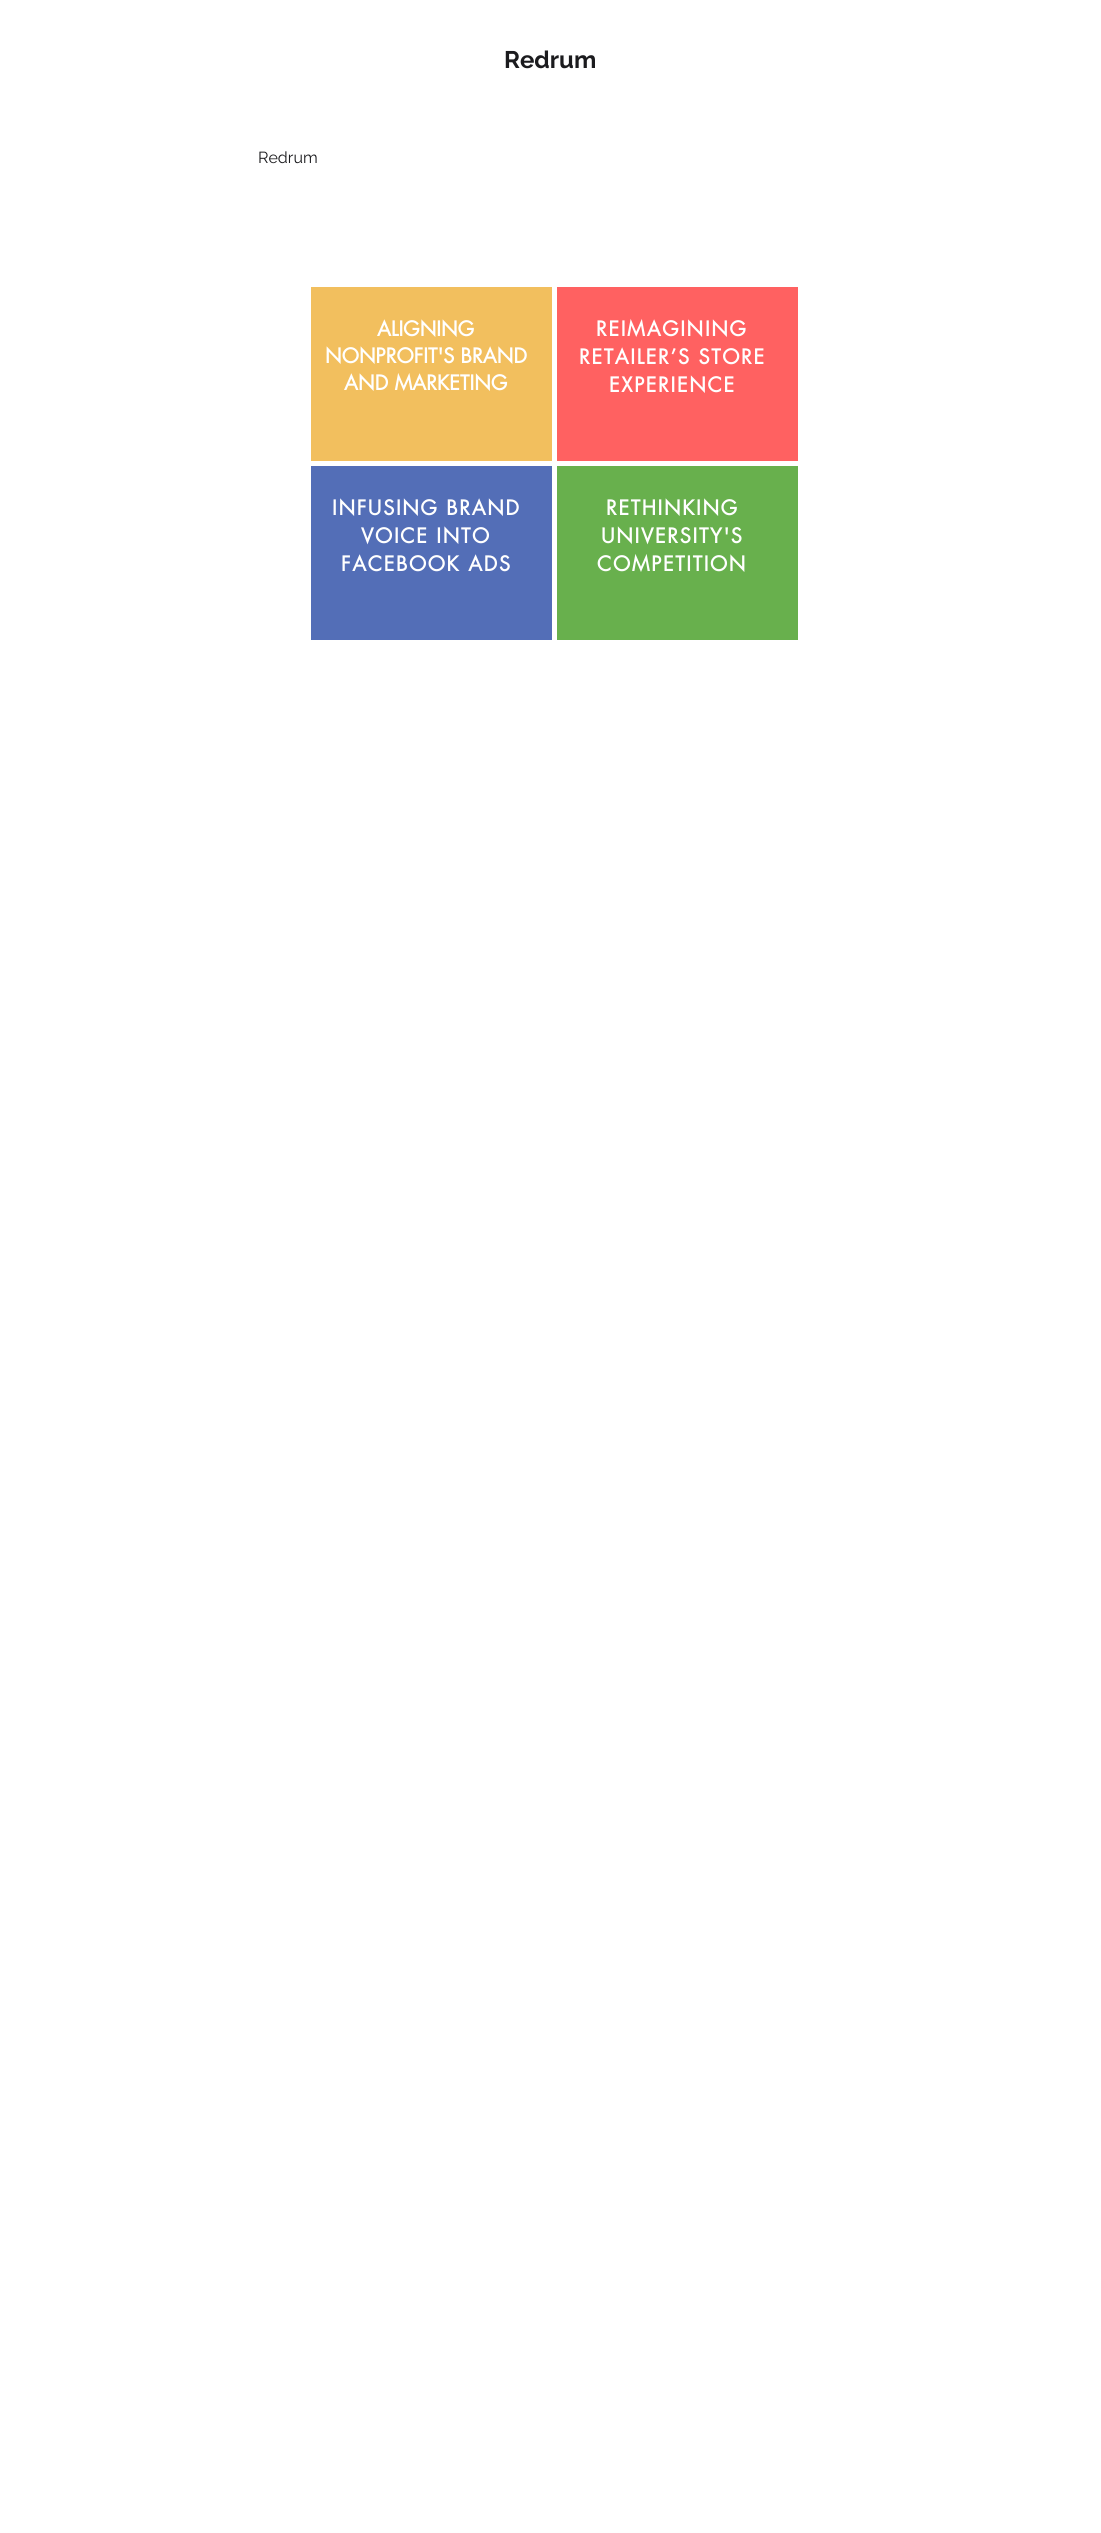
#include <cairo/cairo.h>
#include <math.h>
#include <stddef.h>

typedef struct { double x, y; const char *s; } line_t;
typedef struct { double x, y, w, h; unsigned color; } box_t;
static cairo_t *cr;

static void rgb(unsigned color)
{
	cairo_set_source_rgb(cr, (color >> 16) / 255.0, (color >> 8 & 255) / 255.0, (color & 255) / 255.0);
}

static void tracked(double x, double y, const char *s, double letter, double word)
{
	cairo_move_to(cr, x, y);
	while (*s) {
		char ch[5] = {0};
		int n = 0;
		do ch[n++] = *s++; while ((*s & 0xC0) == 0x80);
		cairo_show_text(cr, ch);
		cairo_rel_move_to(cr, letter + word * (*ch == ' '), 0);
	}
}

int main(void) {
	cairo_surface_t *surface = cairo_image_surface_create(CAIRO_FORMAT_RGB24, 1101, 2533);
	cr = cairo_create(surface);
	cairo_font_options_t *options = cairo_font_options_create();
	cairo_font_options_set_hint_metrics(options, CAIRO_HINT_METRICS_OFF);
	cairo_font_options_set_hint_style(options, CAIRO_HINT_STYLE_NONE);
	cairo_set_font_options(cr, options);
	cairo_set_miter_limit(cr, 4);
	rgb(0xffffff);
	cairo_paint(cr);
	{
		static const box_t items[] = {
			{311, 287, 241, 174, 0xf2bf5e},
			{311, 466, 241, 174, 0x536eb7},
			{557, 287, 241, 174, 0xff6161},
			{557, 466, 241, 174, 0x68b04d},
		};
		for (size_t i = 0; i < sizeof items / sizeof *items; i++) {
			rgb(items[i].color);
			cairo_rectangle(cr, items[i].x, items[i].y, items[i].w, items[i].h);
			cairo_fill(cr);
		}
	}
	cairo_select_font_face(cr, "Raleway", CAIRO_FONT_SLANT_NORMAL, CAIRO_FONT_WEIGHT_BOLD);
	cairo_set_font_size(cr, 24);
	rgb(0x1b1b1e);
	cairo_move_to(cr, 504, 68);
	cairo_show_text(cr, "Redrum");
	cairo_select_font_face(cr, "Raleway", CAIRO_FONT_SLANT_NORMAL, CAIRO_FONT_WEIGHT_NORMAL);
	cairo_set_font_size(cr, 16);
	cairo_move_to(cr, 258, 163);
	cairo_show_text(cr, "Redrum");
	cairo_select_font_face(cr, "futura", CAIRO_FONT_SLANT_NORMAL, CAIRO_FONT_WEIGHT_BOLD);
	cairo_set_font_size(cr, 20);
	rgb(0xffffff);
	{
		static const line_t items[] = {
			{377, 336, "ALIGNING"},
			{325, 363, "NONPROFIT'S BRAND"},
			{344, 390, "AND MARKETING"},
		};
		for (size_t i = 0; i < sizeof items / sizeof *items; i++) {
			cairo_move_to(cr, items[i].x, items[i].y);
			cairo_show_text(cr, items[i].s);
		}
	}
	{
		static const line_t items[] = {
			{332, 515, "INFUSING BRAND"},
			{361, 543, "VOICE INTO"},
			{341, 571, "FACEBOOK ADS"},
			{596, 336, "REIMAGINING"},
			{579, 364, "RETAILER’S STORE"},
			{609, 392, "EXPERIENCE"},
			{606, 515, "RETHINKING"},
			{601, 543, "UNIVERSITY'S"},
			{597, 571, "COMPETITION"},
		};
		for (size_t i = 0; i < sizeof items / sizeof *items; i++) {
			tracked(items[i].x, items[i].y, items[i].s, 1.6, 0);
		}
	}
	cairo_surface_write_to_png(surface, "page.png");
	cairo_font_options_destroy(options);
	cairo_destroy(cr);
	cairo_surface_destroy(surface);
	return 0;
}
